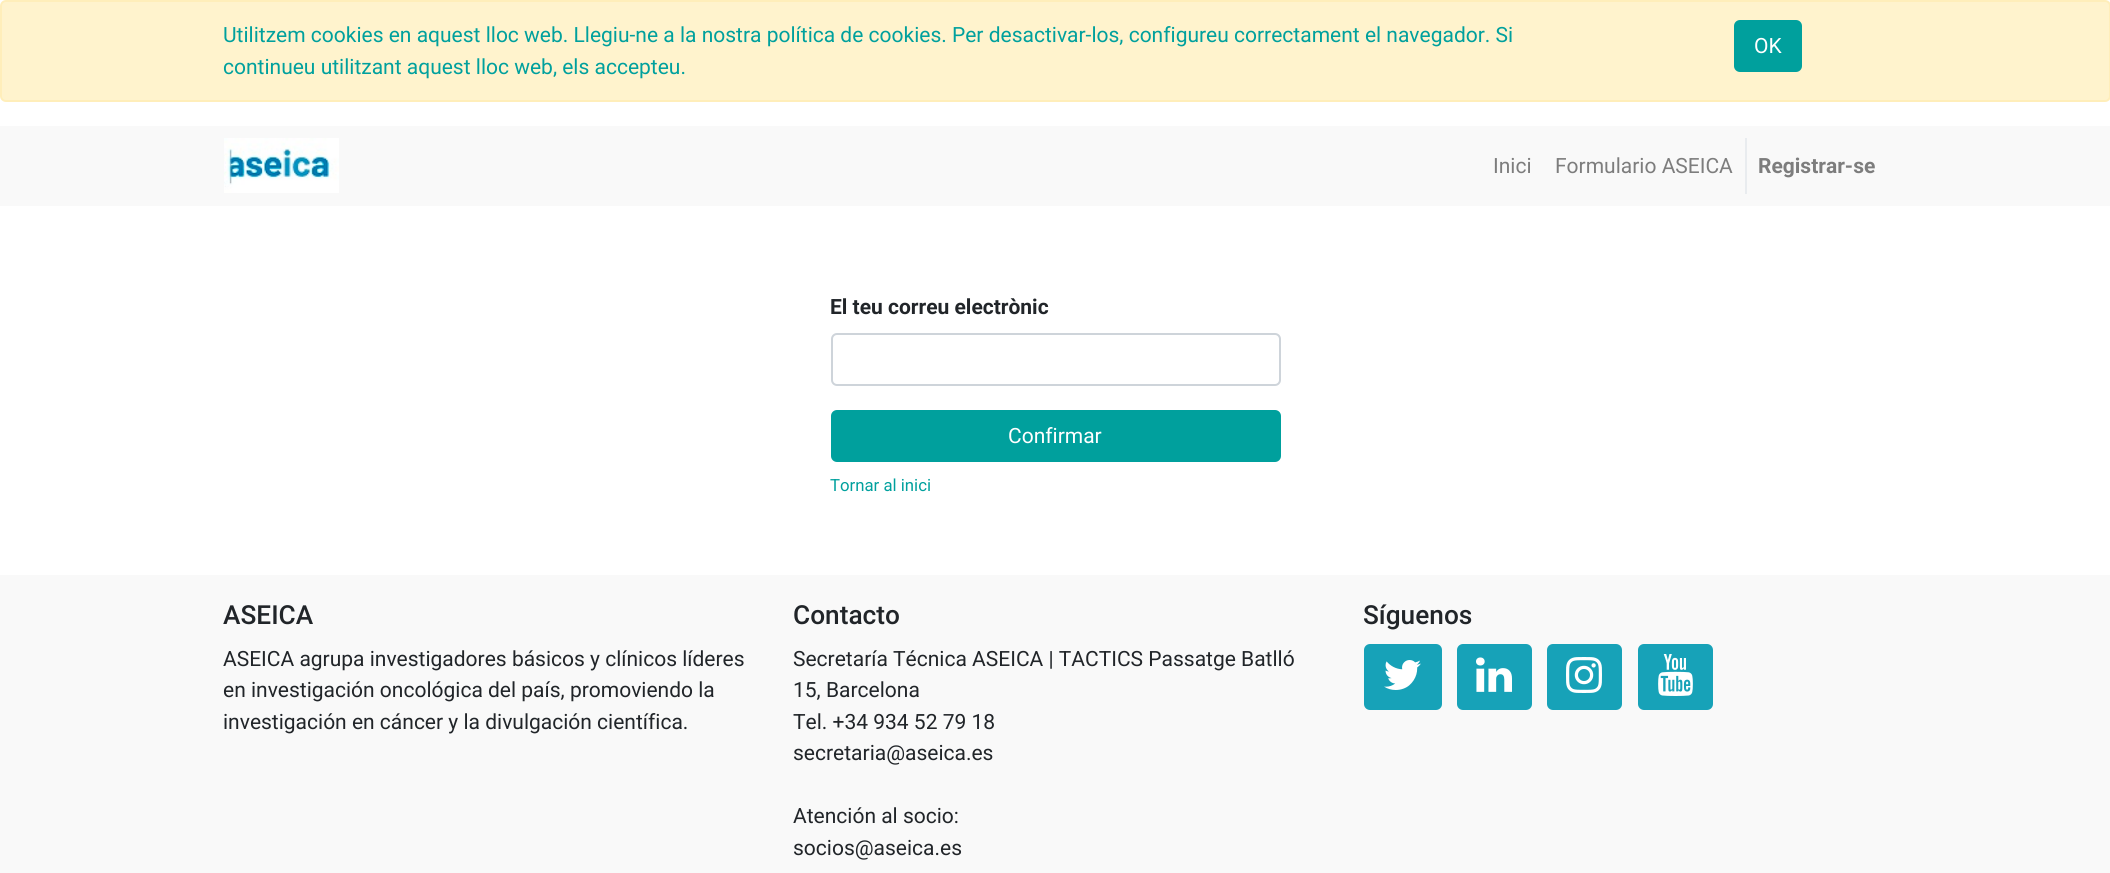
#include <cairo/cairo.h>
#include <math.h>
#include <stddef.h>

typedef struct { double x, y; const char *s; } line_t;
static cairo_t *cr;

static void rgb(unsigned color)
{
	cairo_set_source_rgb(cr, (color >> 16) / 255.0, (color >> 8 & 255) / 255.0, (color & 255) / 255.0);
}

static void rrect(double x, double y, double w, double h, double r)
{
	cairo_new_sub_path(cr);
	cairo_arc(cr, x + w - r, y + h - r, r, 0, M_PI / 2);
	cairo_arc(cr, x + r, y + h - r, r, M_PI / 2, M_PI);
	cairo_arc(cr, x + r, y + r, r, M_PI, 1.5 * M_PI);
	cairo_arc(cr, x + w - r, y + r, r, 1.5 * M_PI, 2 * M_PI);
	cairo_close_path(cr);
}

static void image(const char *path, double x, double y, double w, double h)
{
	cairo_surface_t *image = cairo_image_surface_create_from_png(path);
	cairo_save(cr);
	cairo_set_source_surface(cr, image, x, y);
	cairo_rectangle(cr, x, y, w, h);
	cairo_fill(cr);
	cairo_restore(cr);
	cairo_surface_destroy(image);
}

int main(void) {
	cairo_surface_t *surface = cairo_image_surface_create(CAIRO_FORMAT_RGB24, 2110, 873);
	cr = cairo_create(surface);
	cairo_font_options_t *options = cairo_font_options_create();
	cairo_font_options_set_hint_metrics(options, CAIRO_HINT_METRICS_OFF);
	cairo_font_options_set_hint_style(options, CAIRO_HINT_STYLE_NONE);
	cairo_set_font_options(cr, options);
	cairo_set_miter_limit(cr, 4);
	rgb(0xffffff);
	cairo_paint(cr);
	rgb(0xfff3cd);
	rrect(1, 1, 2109, 100, 5);
	cairo_fill_preserve(cr);
	rgb(0xffeeba);
	cairo_stroke(cr);
	rgb(0x00a09d);
	rrect(1735, 21, 66, 50, 5);
	cairo_fill_preserve(cr);
	cairo_stroke(cr);
	rgb(0xf9f9f9);
	cairo_rectangle(cr, 0, 126, 2110, 80);
	cairo_fill(cr);
	image("img/1.png", 224, 138, 115, 55);
	rgb(0xe9ecef);
	cairo_rectangle(cr, 1745, 138, 2, 56);
	cairo_fill(cr);
	rrect(832, 334, 448, 51, 5);
	rgb(0xced4da);
	cairo_stroke(cr);
	rgb(0x00a09d);
	rrect(832, 411, 448, 50, 5);
	cairo_fill_preserve(cr);
	cairo_stroke(cr);
	rgb(0xf9f9f9);
	cairo_rectangle(cr, 0, 575, 2110, 298);
	cairo_fill(cr);
	rgb(0x17a2b8);
	rrect(1365, 645, 76, 64, 5);
	cairo_fill_preserve(cr);
	cairo_stroke(cr);
	image("img/2.png", 1384, 660, 37, 30);
	rrect(1458, 645, 73, 64, 5);
	cairo_fill_preserve(cr);
	cairo_stroke(cr);
	image("img/3.png", 1476, 657, 36, 35);
	rrect(1548, 645, 73, 64, 5);
	cairo_fill_preserve(cr);
	cairo_stroke(cr);
	image("img/4.png", 1566, 657, 36, 36);
	rrect(1639, 645, 73, 64, 5);
	cairo_fill_preserve(cr);
	cairo_stroke(cr);
	image("img/5.png", 1658, 654, 35, 42);
	cairo_select_font_face(cr, "Roboto", CAIRO_FONT_SLANT_NORMAL, CAIRO_FONT_WEIGHT_NORMAL);
	cairo_set_font_size(cr, 21);
	rgb(0x00a09d);
	cairo_move_to(cr, 223, 42);
	cairo_show_text(cr, "Utilitzem cookies en aquest lloc web. Llegiu-ne a la nostra política de cookies. Per desactivar-los, configureu correctament el navegador. Si");
	cairo_move_to(cr, 223, 74);
	cairo_show_text(cr, "continueu utilitzant aquest lloc web, els accepteu.");
	rgb(0xffffff);
	cairo_move_to(cr, 1754, 53);
	cairo_show_text(cr, "OK");
	rgb(0x7d7d7d);
	cairo_move_to(cr, 1493, 173);
	cairo_show_text(cr, "Inici");
	cairo_move_to(cr, 1555, 173);
	cairo_show_text(cr, "Formulario ASEICA");
	cairo_select_font_face(cr, "Roboto", CAIRO_FONT_SLANT_NORMAL, CAIRO_FONT_WEIGHT_BOLD);
	cairo_move_to(cr, 1758, 173);
	cairo_show_text(cr, "Registrar-se");
	rgb(0x212529);
	cairo_move_to(cr, 830, 314);
	cairo_show_text(cr, "El teu correu electrònic");
	cairo_select_font_face(cr, "Roboto", CAIRO_FONT_SLANT_NORMAL, CAIRO_FONT_WEIGHT_NORMAL);
	rgb(0xffffff);
	cairo_move_to(cr, 1008, 443);
	cairo_show_text(cr, "Confirmar");
	cairo_set_font_size(cr, 16.75);
	rgb(0x00a09d);
	cairo_move_to(cr, 830, 491);
	cairo_show_text(cr, "Tornar al inici");
	cairo_select_font_face(cr, "Roboto Medium", CAIRO_FONT_SLANT_NORMAL, CAIRO_FONT_WEIGHT_NORMAL);
	cairo_set_font_size(cr, 26.25);
	rgb(0x212529);
	cairo_move_to(cr, 223, 624);
	cairo_show_text(cr, "ASEICA");
	cairo_select_font_face(cr, "Roboto", CAIRO_FONT_SLANT_NORMAL, CAIRO_FONT_WEIGHT_NORMAL);
	cairo_set_font_size(cr, 21);
	{
		static const line_t items[] = {
			{223, 666, "ASEICA agrupa investigadores básicos y clínicos líderes"},
			{223, 697, "en investigación oncológica del país, promoviendo la"},
			{223, 729, "investigación en cáncer y la divulgación científica."},
		};
		for (size_t i = 0; i < sizeof items / sizeof *items; i++) {
			cairo_move_to(cr, items[i].x, items[i].y);
			cairo_show_text(cr, items[i].s);
		}
	}
	cairo_select_font_face(cr, "Roboto Medium", CAIRO_FONT_SLANT_NORMAL, CAIRO_FONT_WEIGHT_NORMAL);
	cairo_set_font_size(cr, 26.25);
	cairo_move_to(cr, 793, 624);
	cairo_show_text(cr, "Contacto");
	cairo_select_font_face(cr, "Roboto", CAIRO_FONT_SLANT_NORMAL, CAIRO_FONT_WEIGHT_NORMAL);
	cairo_set_font_size(cr, 21);
	{
		static const line_t items[] = {
			{793, 666, "Secretaría Técnica ASEICA | TACTICS Passatge Batlló"},
			{793, 697, "15, Barcelona"},
			{793, 729, "Tel. +34 934 52 79 18"},
			{793, 760, "secretaria@aseica.es"},
			{793, 823, "Atención al socio:"},
			{793, 855, "socios@aseica.es"},
		};
		for (size_t i = 0; i < sizeof items / sizeof *items; i++) {
			cairo_move_to(cr, items[i].x, items[i].y);
			cairo_show_text(cr, items[i].s);
		}
	}
	cairo_select_font_face(cr, "Roboto Medium", CAIRO_FONT_SLANT_NORMAL, CAIRO_FONT_WEIGHT_NORMAL);
	cairo_set_font_size(cr, 26.25);
	cairo_move_to(cr, 1363, 624);
	cairo_show_text(cr, "Síguenos");
	cairo_surface_write_to_png(surface, "page.png");
	cairo_font_options_destroy(options);
	cairo_destroy(cr);
	cairo_surface_destroy(surface);
	return 0;
}
